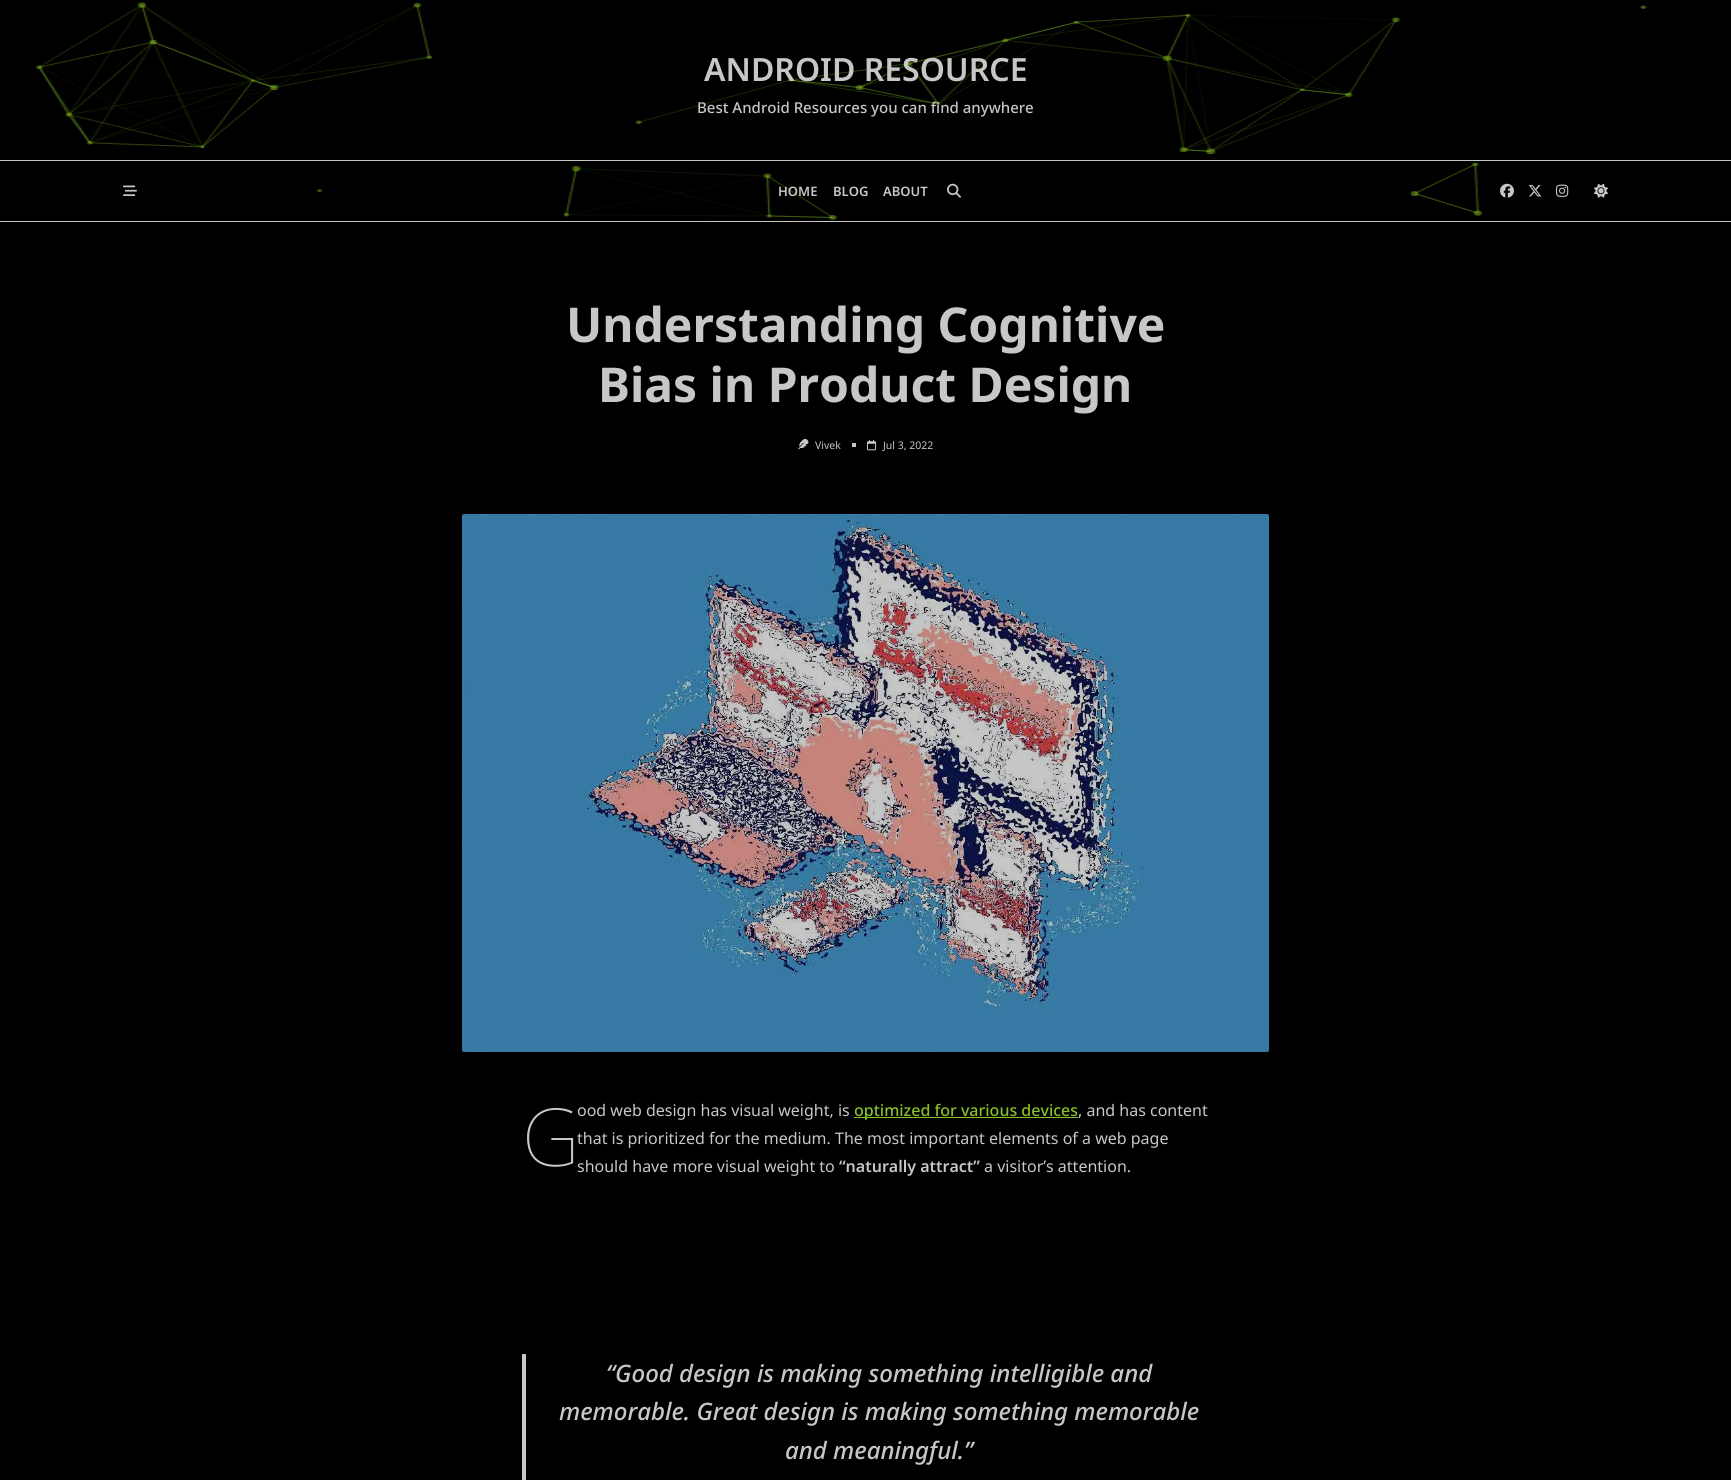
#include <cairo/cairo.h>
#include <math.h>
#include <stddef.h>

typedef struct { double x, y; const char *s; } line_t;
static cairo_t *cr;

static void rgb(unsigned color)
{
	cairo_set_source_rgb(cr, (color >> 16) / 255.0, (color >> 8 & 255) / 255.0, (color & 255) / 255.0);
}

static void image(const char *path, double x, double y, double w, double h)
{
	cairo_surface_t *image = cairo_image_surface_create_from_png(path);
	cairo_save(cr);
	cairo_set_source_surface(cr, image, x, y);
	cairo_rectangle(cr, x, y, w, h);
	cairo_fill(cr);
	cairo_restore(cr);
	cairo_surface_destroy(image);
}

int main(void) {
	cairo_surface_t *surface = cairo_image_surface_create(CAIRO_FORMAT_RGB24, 1731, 1480);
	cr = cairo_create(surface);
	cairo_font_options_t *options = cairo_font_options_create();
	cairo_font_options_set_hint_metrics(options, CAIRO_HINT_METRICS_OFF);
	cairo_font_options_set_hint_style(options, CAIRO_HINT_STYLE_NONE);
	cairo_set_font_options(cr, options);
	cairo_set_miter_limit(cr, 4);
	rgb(0x000000);
	cairo_paint(cr);
	image("img/1.png", 35, 2, 1613, 153);
	rgb(0xc7c7c7);
	cairo_rectangle(cr, 0, 160, 1731, 1);
	cairo_fill(cr);
	cairo_rectangle(cr, 0, 221, 1731, 1);
	cairo_fill(cr);
	image("img/2.png", 316, 162, 1167, 58);
	image("img/3.png", 123, 185, 14, 11);
	image("img/4.png", 947, 183, 14, 15);
	image("img/5.png", 1500, 183, 14, 15);
	image("img/6.png", 1528, 185, 14, 12);
	image("img/7.png", 1556, 184, 13, 13);
	image("img/8.png", 1594, 183, 14, 15);
	image("img/9.png", 798, 438, 11, 12);
	cairo_rectangle(cr, 852, 443, 4, 4);
	cairo_fill(cr);
	image("img/10.png", 867, 439, 10, 12);
	image("img/11.png", 462, 514, 807, 538);
	rgb(0x88c125);
	cairo_rectangle(cr, 854, 1117, 224, 1);
	cairo_fill(cr);
	rgb(0xc7c7c7);
	cairo_rectangle(cr, 522, 1354, 4, 126);
	cairo_fill(cr);
	cairo_select_font_face(cr, "Noto Sans SemiBold", CAIRO_FONT_SLANT_NORMAL, CAIRO_FONT_WEIGHT_NORMAL);
	cairo_set_font_size(cr, 32);
	cairo_move_to(cr, 704, 81);
	cairo_show_text(cr, "ANDROID RESOURCE");
	cairo_select_font_face(cr, "Noto Sans Medium", CAIRO_FONT_SLANT_NORMAL, CAIRO_FONT_WEIGHT_NORMAL);
	cairo_set_font_size(cr, 15);
	cairo_move_to(cr, 697, 113);
	cairo_show_text(cr, "Best Android Resources you can find anywhere");
	cairo_select_font_face(cr, "Noto Sans SemiBold", CAIRO_FONT_SLANT_NORMAL, CAIRO_FONT_WEIGHT_NORMAL);
	cairo_set_font_size(cr, 13);
	{
		static const line_t items[] = {
			{778, 196, "HOME"},
			{833, 196, "BLOG"},
			{883, 196, "ABOUT"},
		};
		for (size_t i = 0; i < sizeof items / sizeof *items; i++) {
			cairo_move_to(cr, items[i].x, items[i].y);
			cairo_show_text(cr, items[i].s);
		}
	}
	cairo_select_font_face(cr, "Noto Sans", CAIRO_FONT_SLANT_NORMAL, CAIRO_FONT_WEIGHT_BOLD);
	cairo_set_font_size(cr, 48);
	cairo_move_to(cr, 566, 342);
	cairo_show_text(cr, "Understanding Cognitive");
	cairo_move_to(cr, 598, 402);
	cairo_show_text(cr, "Bias in Product Design");
	cairo_select_font_face(cr, "Noto Sans", CAIRO_FONT_SLANT_NORMAL, CAIRO_FONT_WEIGHT_NORMAL);
	cairo_set_font_size(cr, 10.5);
	cairo_move_to(cr, 815, 449);
	cairo_show_text(cr, "Vivek");
	cairo_move_to(cr, 883, 449);
	cairo_show_text(cr, "Jul 3, 2022");
	cairo_select_font_face(cr, "Noto Sans Thin", CAIRO_FONT_SLANT_NORMAL, CAIRO_FONT_WEIGHT_NORMAL);
	cairo_set_font_size(cr, 80);
	cairo_move_to(cr, 522, 1166);
	cairo_show_text(cr, "G");
	cairo_select_font_face(cr, "Noto Sans", CAIRO_FONT_SLANT_NORMAL, CAIRO_FONT_WEIGHT_NORMAL);
	cairo_set_font_size(cr, 16);
	cairo_move_to(cr, 577, 1116);
	cairo_show_text(cr, "ood web design has visual weight, is");
	cairo_select_font_face(cr, "Noto Sans Medium", CAIRO_FONT_SLANT_NORMAL, CAIRO_FONT_WEIGHT_NORMAL);
	rgb(0x88c125);
	cairo_move_to(cr, 854, 1116);
	cairo_show_text(cr, "optimized for various devices");
	cairo_select_font_face(cr, "Noto Sans", CAIRO_FONT_SLANT_NORMAL, CAIRO_FONT_WEIGHT_NORMAL);
	rgb(0xc7c7c7);
	{
		static const line_t items[] = {
			{1078, 1116, ", and has content"},
			{577, 1144, "that is prioritized for the medium. The most important elements of a web page"},
			{577, 1172, "should have more visual weight to"},
		};
		for (size_t i = 0; i < sizeof items / sizeof *items; i++) {
			cairo_move_to(cr, items[i].x, items[i].y);
			cairo_show_text(cr, items[i].s);
		}
	}
	cairo_select_font_face(cr, "Noto Sans SemiBold", CAIRO_FONT_SLANT_NORMAL, CAIRO_FONT_WEIGHT_NORMAL);
	cairo_move_to(cr, 839, 1172);
	cairo_show_text(cr, "“naturally attract”");
	cairo_select_font_face(cr, "Noto Sans", CAIRO_FONT_SLANT_NORMAL, CAIRO_FONT_WEIGHT_NORMAL);
	cairo_move_to(cr, 984, 1172);
	cairo_show_text(cr, "a visitor’s attention.");
	cairo_select_font_face(cr, "Noto Sans Medium", CAIRO_FONT_SLANT_ITALIC, CAIRO_FONT_WEIGHT_NORMAL);
	cairo_set_font_size(cr, 24);
	{
		static const line_t items[] = {
			{606, 1382, "“Good design is making something intelligible and"},
			{559, 1420, "memorable. Great design is making something memorable"},
			{785, 1459, "and meaningful.”"},
		};
		for (size_t i = 0; i < sizeof items / sizeof *items; i++) {
			cairo_move_to(cr, items[i].x, items[i].y);
			cairo_show_text(cr, items[i].s);
		}
	}
	cairo_surface_write_to_png(surface, "page.png");
	cairo_font_options_destroy(options);
	cairo_destroy(cr);
	cairo_surface_destroy(surface);
	return 0;
}
